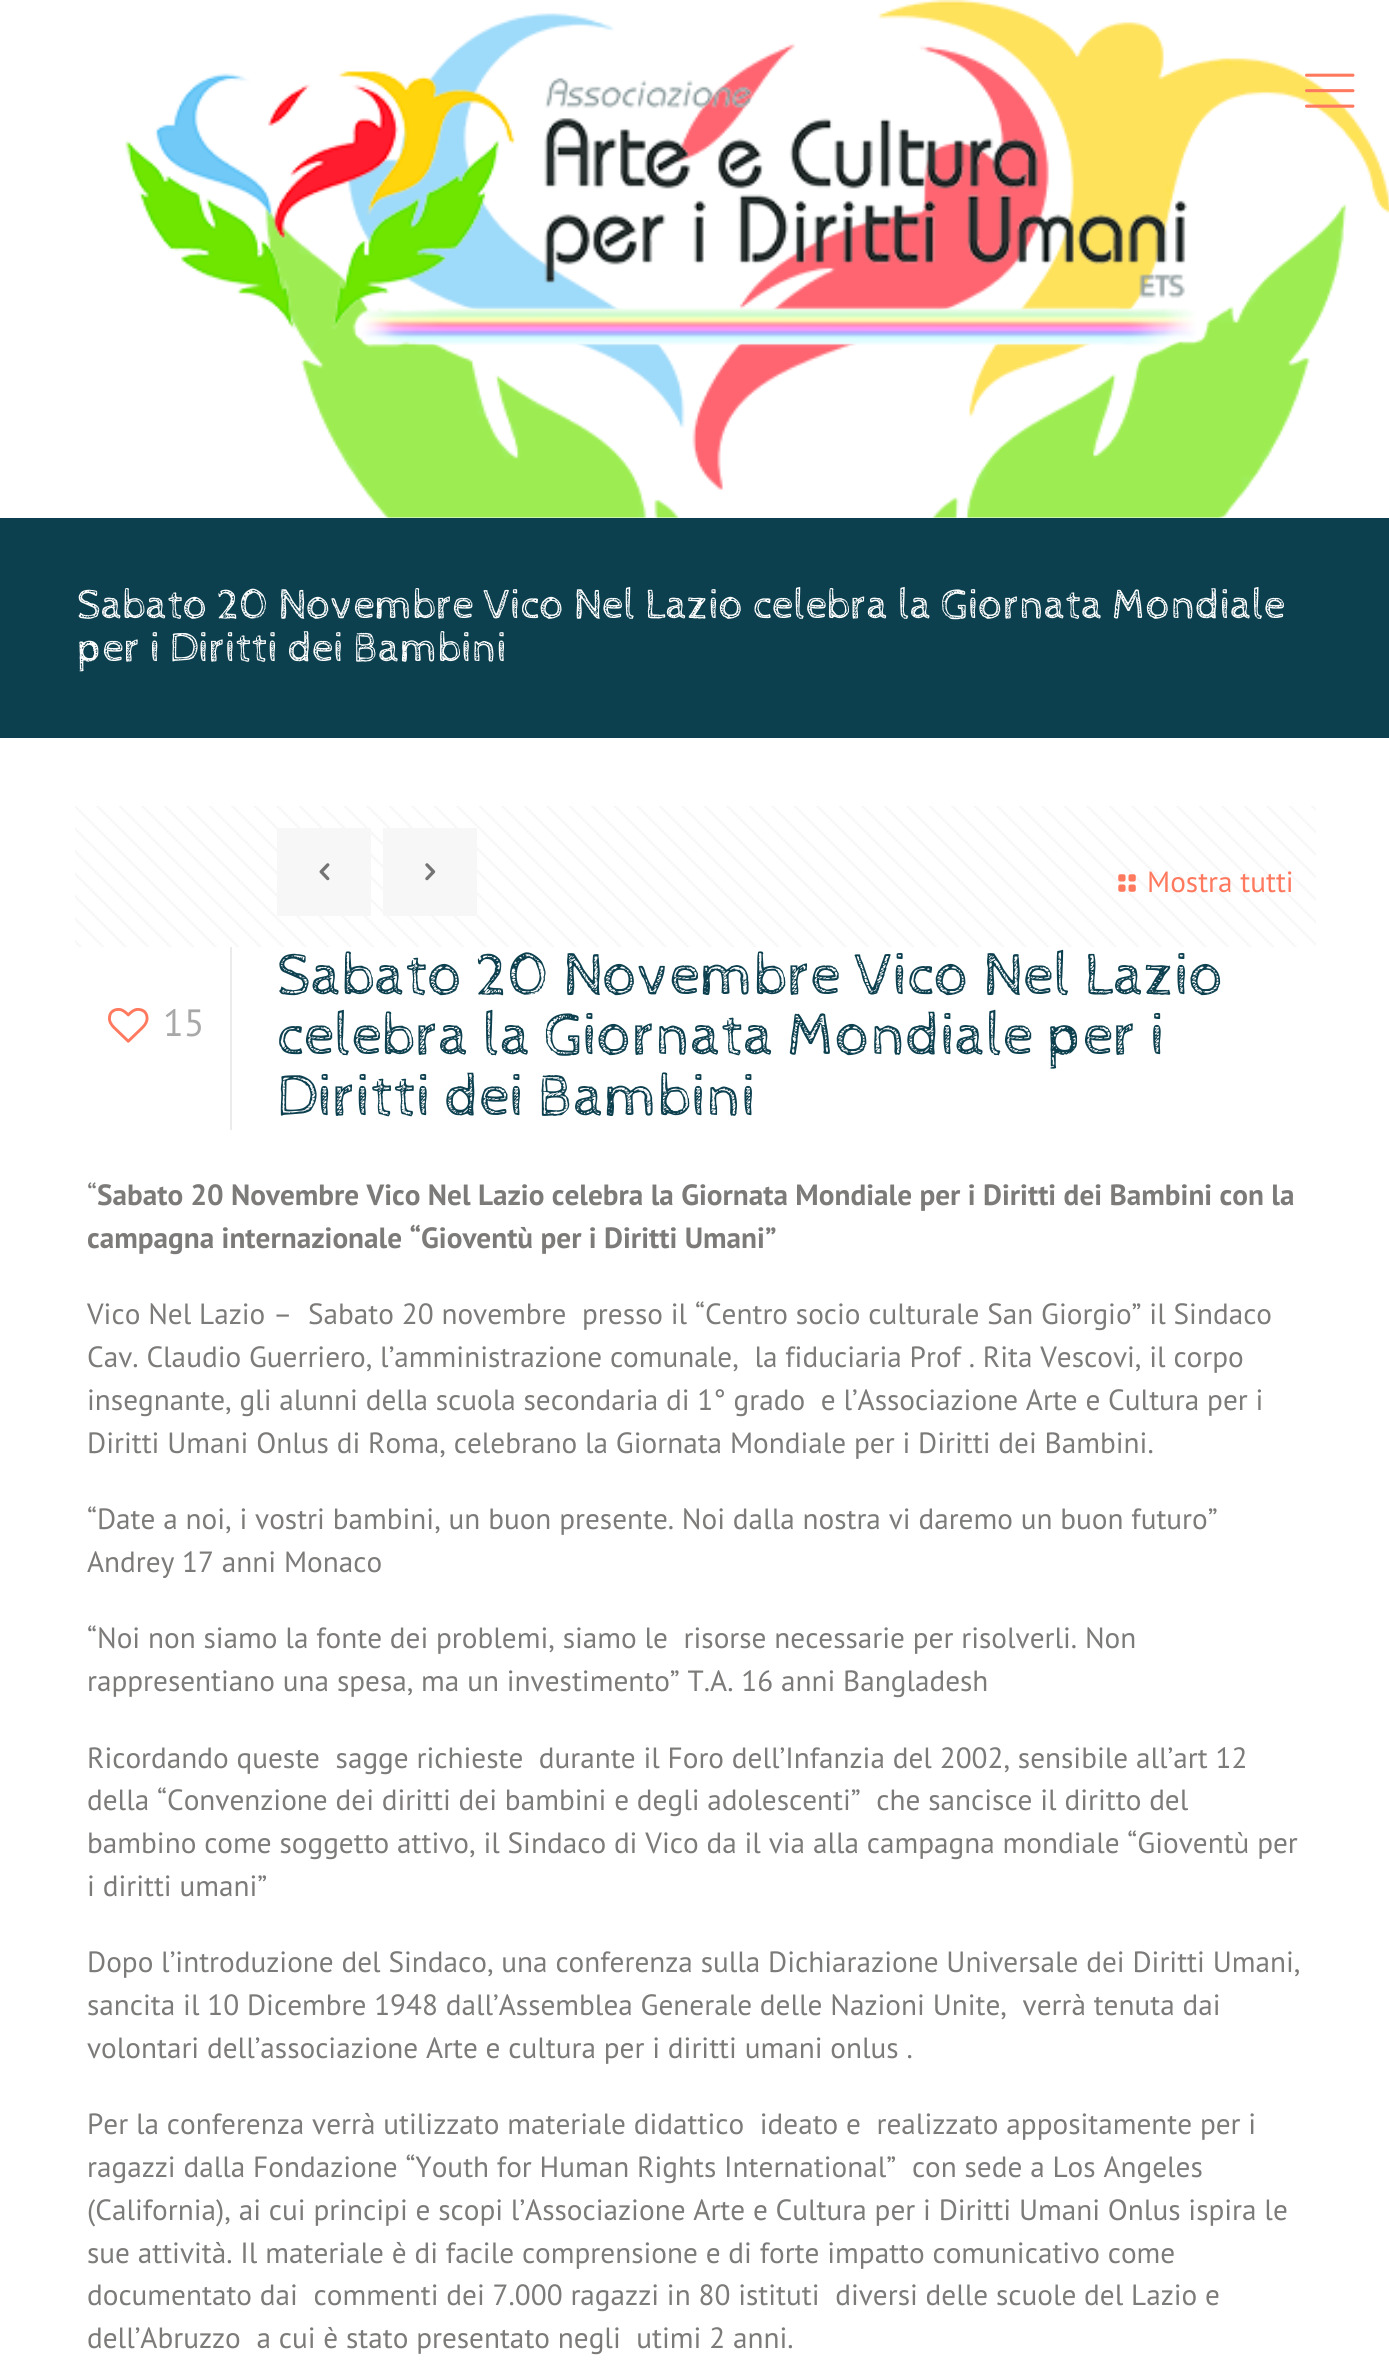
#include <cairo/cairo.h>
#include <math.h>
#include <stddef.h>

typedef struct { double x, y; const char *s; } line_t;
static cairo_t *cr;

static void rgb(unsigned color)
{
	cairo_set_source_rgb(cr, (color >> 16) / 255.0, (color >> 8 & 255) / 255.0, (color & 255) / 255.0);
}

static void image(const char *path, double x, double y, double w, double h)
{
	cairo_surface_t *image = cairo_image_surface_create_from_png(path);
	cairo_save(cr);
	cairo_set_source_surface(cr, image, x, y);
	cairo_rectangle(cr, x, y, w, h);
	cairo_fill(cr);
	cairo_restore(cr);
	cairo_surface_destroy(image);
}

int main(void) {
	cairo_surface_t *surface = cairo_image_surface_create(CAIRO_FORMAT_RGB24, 1389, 2380);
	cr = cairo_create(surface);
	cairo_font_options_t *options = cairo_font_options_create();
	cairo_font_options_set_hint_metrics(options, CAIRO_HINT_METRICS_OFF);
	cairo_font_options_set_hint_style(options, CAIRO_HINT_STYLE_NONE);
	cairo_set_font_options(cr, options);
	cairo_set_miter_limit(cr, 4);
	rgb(0xffffff);
	cairo_paint(cr);
	image("img/1.png", 265, 0, 1124, 518);
	image("img/2.png", 125, 71, 1085, 277);
	image("img/3.png", 1305, 73, 50, 35);
	rgb(0x0d404f);
	cairo_rectangle(cr, 0, 518, 1389, 220);
	cairo_fill(cr);
	image("img/4.png", 75, 806, 1241, 141);
	rgb(0xf7f7f7);
	cairo_rectangle(cr, 277, 828, 94, 88);
	cairo_fill(cr);
	image("img/5.png", 319, 863, 11, 18);
	cairo_rectangle(cr, 383, 828, 94, 88);
	cairo_fill(cr);
	image("img/6.png", 425, 863, 11, 18);
	image("img/7.png", 1118, 874, 18, 18);
	image("img/8.png", 108, 1007, 41, 36);
	rgb(0xebebeb);
	cairo_rectangle(cr, 230, 947, 2, 183);
	cairo_fill(cr);
	cairo_select_font_face(cr, "Cabin Sketch", CAIRO_FONT_SLANT_NORMAL, CAIRO_FONT_WEIGHT_NORMAL);
	cairo_set_font_size(cr, 42.75);
	rgb(0xffffff);
	cairo_move_to(cr, 77, 618);
	cairo_show_text(cr, "Sabato 20 Novembre Vico Nel Lazio celebra la Giornata Mondiale");
	cairo_move_to(cr, 77, 661);
	cairo_show_text(cr, "per i Diritti dei Bambini");
	cairo_select_font_face(cr, "PT Sans", CAIRO_FONT_SLANT_NORMAL, CAIRO_FONT_WEIGHT_NORMAL);
	cairo_set_font_size(cr, 29.25);
	rgb(0xff795f);
	cairo_move_to(cr, 1147, 892);
	cairo_show_text(cr, "Mostra tutti");
	cairo_set_font_size(cr, 38);
	rgb(0xa8a8a8);
	cairo_move_to(cr, 163, 1036);
	cairo_show_text(cr, "15");
	cairo_select_font_face(cr, "Cabin Sketch", CAIRO_FONT_SLANT_NORMAL, CAIRO_FONT_WEIGHT_NORMAL);
	cairo_set_font_size(cr, 60.75);
	rgb(0x0d404f);
	{
		static const line_t items[] = {
			{277, 994, "Sabato 20 Novembre Vico Nel Lazio"},
			{277, 1054, "celebra la Giornata Mondiale per i"},
			{277, 1115, "Diritti dei Bambini"},
		};
		for (size_t i = 0; i < sizeof items / sizeof *items; i++) {
			cairo_move_to(cr, items[i].x, items[i].y);
			cairo_show_text(cr, items[i].s);
		}
	}
	cairo_select_font_face(cr, "PT Sans", CAIRO_FONT_SLANT_NORMAL, CAIRO_FONT_WEIGHT_NORMAL);
	cairo_set_font_size(cr, 29.25);
	rgb(0x7c7b79);
	cairo_move_to(cr, 87, 1205);
	cairo_show_text(cr, "“");
	cairo_select_font_face(cr, "PT Sans", CAIRO_FONT_SLANT_NORMAL, CAIRO_FONT_WEIGHT_BOLD);
	cairo_move_to(cr, 97, 1205);
	cairo_show_text(cr, "Sabato 20 Novembre Vico Nel Lazio celebra la Giornata Mondiale per i Diritti dei Bambini con la");
	cairo_move_to(cr, 87, 1248);
	cairo_show_text(cr, "campagna internazionale “Gioventù per i Diritti Umani”");
	cairo_select_font_face(cr, "PT Sans", CAIRO_FONT_SLANT_NORMAL, CAIRO_FONT_WEIGHT_NORMAL);
	{
		static const line_t items[] = {
			{87, 1324, "Vico Nel Lazio –  Sabato 20 novembre  presso il “Centro socio culturale San Giorgio” il Sindaco"},
			{87, 1367, "Cav. Claudio Guerriero, l’amministrazione comunale,  la fiduciaria Prof . Rita Vescovi, il corpo"},
			{87, 1410, "insegnante, gli alunni della scuola secondaria di 1° grado  e l’Associazione Arte e Cultura per i"},
			{87, 1453, "Diritti Umani Onlus di Roma, celebrano la Giornata Mondiale per i Diritti dei Bambini."},
			{87, 1529, "“Date a noi, i vostri bambini, un buon presente. Noi dalla nostra vi daremo un buon futuro”"},
			{87, 1572, "Andrey 17 anni Monaco"},
			{87, 1648, "“Noi non siamo la fonte dei problemi, siamo le  risorse necessarie per risolverli. Non"},
			{87, 1691, "rappresentiano una spesa, ma un investimento” T.A. 16 anni Bangladesh"},
			{87, 1768, "Ricordando queste  sagge richieste  durante il Foro dell’Infanzia del 2002, sensibile all’art 12"},
			{87, 1810, "della “Convenzione dei diritti dei bambini e degli adolescenti”  che sancisce il diritto del"},
			{87, 1853, "bambino come soggetto attivo, il Sindaco di Vico da il via alla campagna mondiale “Gioventù per"},
			{87, 1896, "i diritti umani”"},
			{87, 1972, "Dopo l’introduzione del Sindaco, una conferenza sulla Dichiarazione Universale dei Diritti Umani,"},
			{87, 2015, "sancita il 10 Dicembre 1948 dall’Assemblea Generale delle Nazioni Unite,  verrà tenuta dai"},
			{87, 2058, "volontari dell’associazione Arte e cultura per i diritti umani onlus ."},
			{87, 2134, "Per la conferenza verrà utilizzato materiale didattico  ideato e  realizzato appositamente per i"},
			{87, 2177, "ragazzi dalla Fondazione “Youth for Human Rights International”  con sede a Los Angeles"},
			{87, 2220, "(California), ai cui principi e scopi l’Associazione Arte e Cultura per i Diritti Umani Onlus ispira le"},
			{87, 2263, "sue attività. Il materiale è di facile comprensione e di forte impatto comunicativo come"},
			{87, 2305, "documentato dai  commenti dei 7.000 ragazzi in 80 istituti  diversi delle scuole del Lazio e"},
			{87, 2348, "dell’Abruzzo  a cui è stato presentato negli  utimi 2 anni."},
		};
		for (size_t i = 0; i < sizeof items / sizeof *items; i++) {
			cairo_move_to(cr, items[i].x, items[i].y);
			cairo_show_text(cr, items[i].s);
		}
	}
	cairo_surface_write_to_png(surface, "page.png");
	cairo_font_options_destroy(options);
	cairo_destroy(cr);
	cairo_surface_destroy(surface);
	return 0;
}
